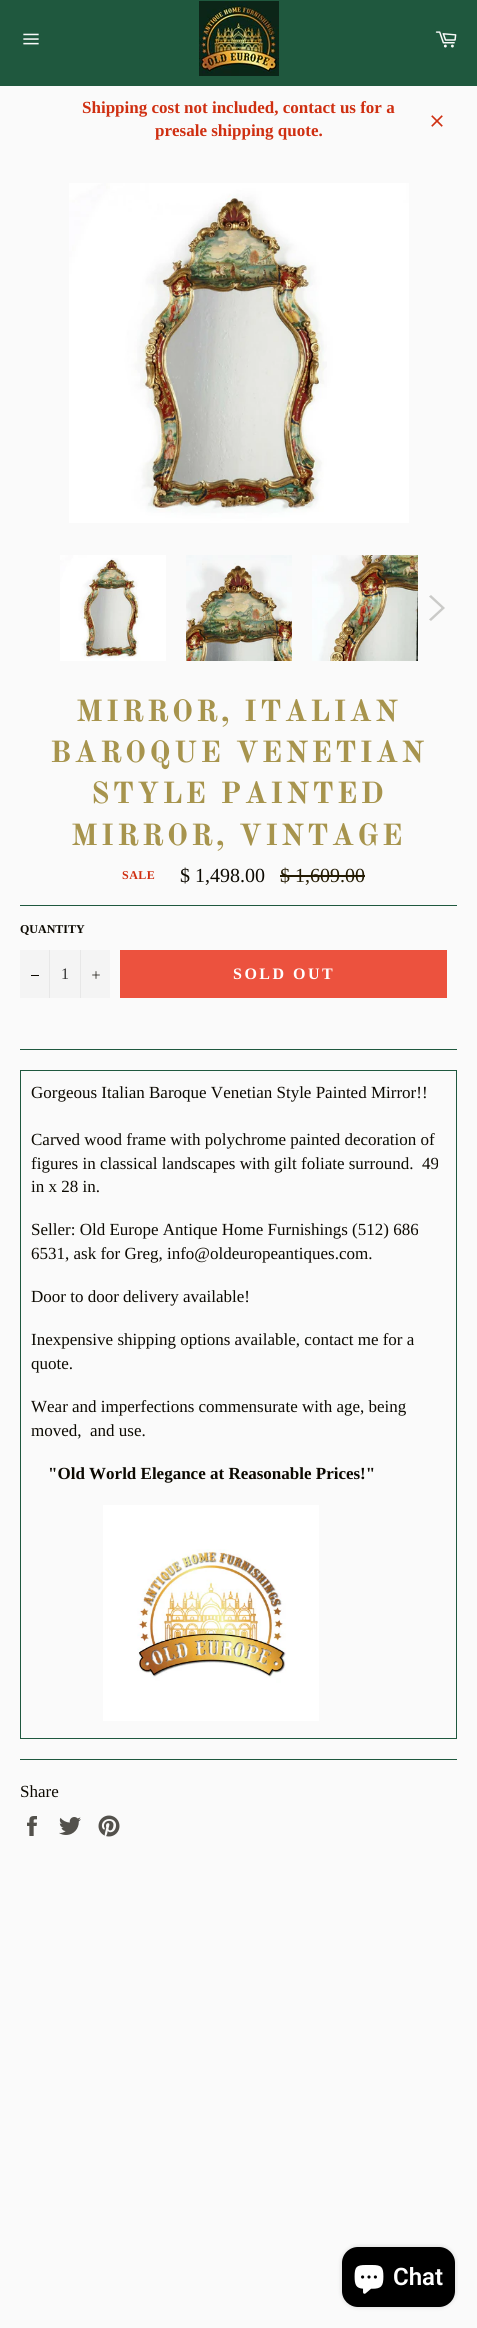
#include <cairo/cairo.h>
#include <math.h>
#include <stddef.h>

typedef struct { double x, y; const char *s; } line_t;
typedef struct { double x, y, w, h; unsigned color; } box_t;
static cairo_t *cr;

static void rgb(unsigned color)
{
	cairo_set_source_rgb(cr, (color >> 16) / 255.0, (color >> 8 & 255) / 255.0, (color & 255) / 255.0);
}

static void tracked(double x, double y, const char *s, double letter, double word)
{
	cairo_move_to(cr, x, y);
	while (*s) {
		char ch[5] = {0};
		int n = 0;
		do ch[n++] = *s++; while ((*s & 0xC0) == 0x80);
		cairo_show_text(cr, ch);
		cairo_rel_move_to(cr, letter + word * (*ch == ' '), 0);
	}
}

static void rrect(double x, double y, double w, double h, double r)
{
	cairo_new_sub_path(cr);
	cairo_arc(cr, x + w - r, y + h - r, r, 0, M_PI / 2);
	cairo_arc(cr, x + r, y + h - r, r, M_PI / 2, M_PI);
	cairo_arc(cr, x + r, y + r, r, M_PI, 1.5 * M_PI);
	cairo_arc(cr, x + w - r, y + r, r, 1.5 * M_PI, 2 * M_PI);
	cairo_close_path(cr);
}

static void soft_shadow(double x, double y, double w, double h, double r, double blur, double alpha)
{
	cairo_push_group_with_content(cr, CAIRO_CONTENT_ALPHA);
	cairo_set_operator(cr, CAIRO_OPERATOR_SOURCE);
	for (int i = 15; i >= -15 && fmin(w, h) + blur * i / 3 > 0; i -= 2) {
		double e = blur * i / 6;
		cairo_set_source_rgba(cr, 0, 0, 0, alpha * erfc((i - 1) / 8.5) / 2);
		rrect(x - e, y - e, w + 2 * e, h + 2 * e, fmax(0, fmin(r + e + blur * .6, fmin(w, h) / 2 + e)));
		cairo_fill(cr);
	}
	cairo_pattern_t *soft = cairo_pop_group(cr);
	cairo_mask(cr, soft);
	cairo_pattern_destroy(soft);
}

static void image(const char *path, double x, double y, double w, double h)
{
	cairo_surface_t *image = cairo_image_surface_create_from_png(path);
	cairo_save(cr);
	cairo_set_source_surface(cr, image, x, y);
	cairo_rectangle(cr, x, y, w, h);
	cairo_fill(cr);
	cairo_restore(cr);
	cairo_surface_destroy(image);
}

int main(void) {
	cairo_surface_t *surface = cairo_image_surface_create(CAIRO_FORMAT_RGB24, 477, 2328);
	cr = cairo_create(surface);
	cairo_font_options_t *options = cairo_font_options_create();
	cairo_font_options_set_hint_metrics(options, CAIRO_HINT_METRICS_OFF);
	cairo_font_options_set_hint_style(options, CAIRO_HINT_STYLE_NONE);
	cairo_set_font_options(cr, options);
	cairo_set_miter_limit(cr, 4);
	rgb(0x1f583e);
	cairo_paint(cr);
	image("img/1.png", 23, 33, 16, 12);
	image("img/2.png", 199, 1, 80, 75);
	image("img/3.png", 435, 31, 22, 17);
	rgb(0xfafafa);
	cairo_rectangle(cr, 0, 86, 477, 2242);
	cairo_fill(cr);
	image("img/4.png", 431, 115, 12, 12);
	image("img/5.png", 69, 183, 340, 340);
	image("img/6.png", 60, 555, 106, 106);
	image("img/7.png", 186, 555, 106, 106);
	image("img/8.png", 312, 555, 106, 106);
	rgb(0xcacac8);
	cairo_new_path(cr);
	cairo_move_to(cr, 429, 596.5);
	cairo_line_to(cr, 431, 595);
	cairo_line_to(cr, 445, 608);
	cairo_line_to(cr, 431, 621);
	cairo_line_to(cr, 429, 619.5);
	cairo_line_to(cr, 441.5, 608);
	cairo_close_path(cr);
	cairo_fill(cr);
	{
		static const box_t items[] = {
			{280, 875, 85, 2, 0x241b03},
			{20, 905, 437, 1, 0x1f583e},
			{20, 950, 90, 48, 0xf4f4f4},
			{49, 950, 1, 48, 0xe7e7e7},
			{31, 975, 8, 1, 0x0c0901},
			{80, 950, 1, 48, 0xe7e7e7},
		};
		for (size_t i = 0; i < sizeof items / sizeof *items; i++) {
			rgb(items[i].color);
			cairo_rectangle(cr, items[i].x, items[i].y, items[i].w, items[i].h);
			cairo_fill(cr);
		}
	}
	image("img/9.png", 92, 971, 8, 8);
	{
		static const box_t items[] = {
			{120, 950, 327, 48, 0xec523e},
			{20, 1049, 437, 1, 0x1f583e},
			{20, 1070, 437, 1, 0x1f583e},
			{456, 1070, 1, 669, 0x1f583e},
			{20, 1738, 437, 1, 0x1f583e},
			{20, 1070, 1, 669, 0x1f583e},
		};
		for (size_t i = 0; i < sizeof items / sizeof *items; i++) {
			rgb(items[i].color);
			cairo_rectangle(cr, items[i].x, items[i].y, items[i].w, items[i].h);
			cairo_fill(cr);
		}
	}
	image("img/10.png", 103, 1505, 216, 216);
	cairo_rectangle(cr, 20, 1759, 437, 1);
	cairo_fill(cr);
	image("img/11.png", 27, 1816, 10, 20);
	image("img/12.png", 59, 1817, 22, 18);
	image("img/13.png", 98, 1815, 22, 22);
	rgb(0x000000);
	soft_shadow(342, 2247, 113, 60, 16, 2.5, 0.15);
	rgb(0x000000);
	rrect(342, 2247, 113, 60, 16);
	cairo_fill(cr);
	image("img/14.png", 354, 2265, 30, 29);
	cairo_select_font_face(cr, "Liberation Serif", CAIRO_FONT_SLANT_NORMAL, CAIRO_FONT_WEIGHT_BOLD);
	cairo_set_font_size(cr, 17);
	rgb(0xcf2f11);
	cairo_move_to(cr, 82, 113);
	cairo_show_text(cr, "Shipping cost not included, contact us for a");
	cairo_move_to(cr, 155, 136);
	cairo_show_text(cr, "presale shipping quote.");
	cairo_select_font_face(cr, "Old Standard TT", CAIRO_FONT_SLANT_NORMAL, CAIRO_FONT_WEIGHT_BOLD);
	cairo_set_font_size(cr, 30);
	rgb(0xa7944d);
	{
		static const line_t items[] = {
			{76, 721, "MIRROR, ITALIAN"},
			{50, 762, "BAROQUE VENETIAN"},
			{91, 803, "STYLE PAINTED"},
			{71, 845, "MIRROR, VINTAGE"},
		};
		for (size_t i = 0; i < sizeof items / sizeof *items; i++) {
			tracked(items[i].x, items[i].y, items[i].s, 3, 0);
		}
	}
	cairo_select_font_face(cr, "Liberation Serif", CAIRO_FONT_SLANT_NORMAL, CAIRO_FONT_WEIGHT_BOLD);
	cairo_set_font_size(cr, 12);
	rgb(0xcf2f11);
	tracked(122, 879, "SALE", 0.5, 0);
	cairo_select_font_face(cr, "Liberation Serif", CAIRO_FONT_SLANT_NORMAL, CAIRO_FONT_WEIGHT_NORMAL);
	cairo_set_font_size(cr, 20);
	rgb(0x0c0901);
	cairo_move_to(cr, 180, 882);
	cairo_show_text(cr, "$ 1,498.00");
	rgb(0x241b03);
	cairo_move_to(cr, 280, 882);
	cairo_show_text(cr, "$ 1,609.00");
	cairo_select_font_face(cr, "Liberation Serif", CAIRO_FONT_SLANT_NORMAL, CAIRO_FONT_WEIGHT_BOLD);
	cairo_set_font_size(cr, 12);
	rgb(0x0c0901);
	cairo_move_to(cr, 20, 933);
	cairo_show_text(cr, "QUANTITY");
	cairo_select_font_face(cr, "Liberation Serif", CAIRO_FONT_SLANT_NORMAL, CAIRO_FONT_WEIGHT_NORMAL);
	cairo_set_font_size(cr, 16);
	rgb(0x333333);
	cairo_move_to(cr, 61, 979);
	cairo_show_text(cr, "1");
	cairo_select_font_face(cr, "Liberation Serif", CAIRO_FONT_SLANT_NORMAL, CAIRO_FONT_WEIGHT_BOLD);
	rgb(0xffffff);
	tracked(233, 979, "SOLD OUT", 2.5, 0);
	cairo_select_font_face(cr, "Liberation Serif", CAIRO_FONT_SLANT_NORMAL, CAIRO_FONT_WEIGHT_NORMAL);
	cairo_set_font_size(cr, 17);
	rgb(0x0c0901);
	{
		static const line_t items[] = {
			{31, 1098, "Gorgeous Italian Baroque Venetian Style Painted Mirror!!"},
			{31, 1145, "Carved wood frame with polychrome painted decoration of"},
			{31, 1169, "figures in classical landscapes with gilt foliate surround.  49"},
			{31, 1192, "in x 28 in."},
			{31, 1235, "Seller: Old Europe Antique Home Furnishings (512) 686"},
			{31, 1259, "6531, ask for Greg, info@oldeuropeantiques.com."},
			{31, 1302, "Door to door delivery available!"},
			{31, 1345, "Inexpensive shipping options available, contact me for a"},
			{31, 1369, "quote."},
			{31, 1412, "Wear and imperfections commensurate with age, being"},
			{31, 1436, "moved,  and use."},
		};
		for (size_t i = 0; i < sizeof items / sizeof *items; i++) {
			cairo_move_to(cr, items[i].x, items[i].y);
			cairo_show_text(cr, items[i].s);
		}
	}
	cairo_select_font_face(cr, "Liberation Serif", CAIRO_FONT_SLANT_NORMAL, CAIRO_FONT_WEIGHT_BOLD);
	cairo_move_to(cr, 48, 1479);
	cairo_show_text(cr, "\"Old World Elegance at Reasonable Prices!\"");
	cairo_select_font_face(cr, "Liberation Serif", CAIRO_FONT_SLANT_NORMAL, CAIRO_FONT_WEIGHT_NORMAL);
	cairo_move_to(cr, 20, 1797);
	cairo_show_text(cr, "Share");
	cairo_select_font_face(cr, "Roboto SemiBold", CAIRO_FONT_SLANT_NORMAL, CAIRO_FONT_WEIGHT_NORMAL);
	cairo_set_font_size(cr, 24);
	rgb(0xffffff);
	cairo_move_to(cr, 393, 2285);
	cairo_show_text(cr, "Chat");
	cairo_surface_write_to_png(surface, "page.png");
	cairo_font_options_destroy(options);
	cairo_destroy(cr);
	cairo_surface_destroy(surface);
	return 0;
}
